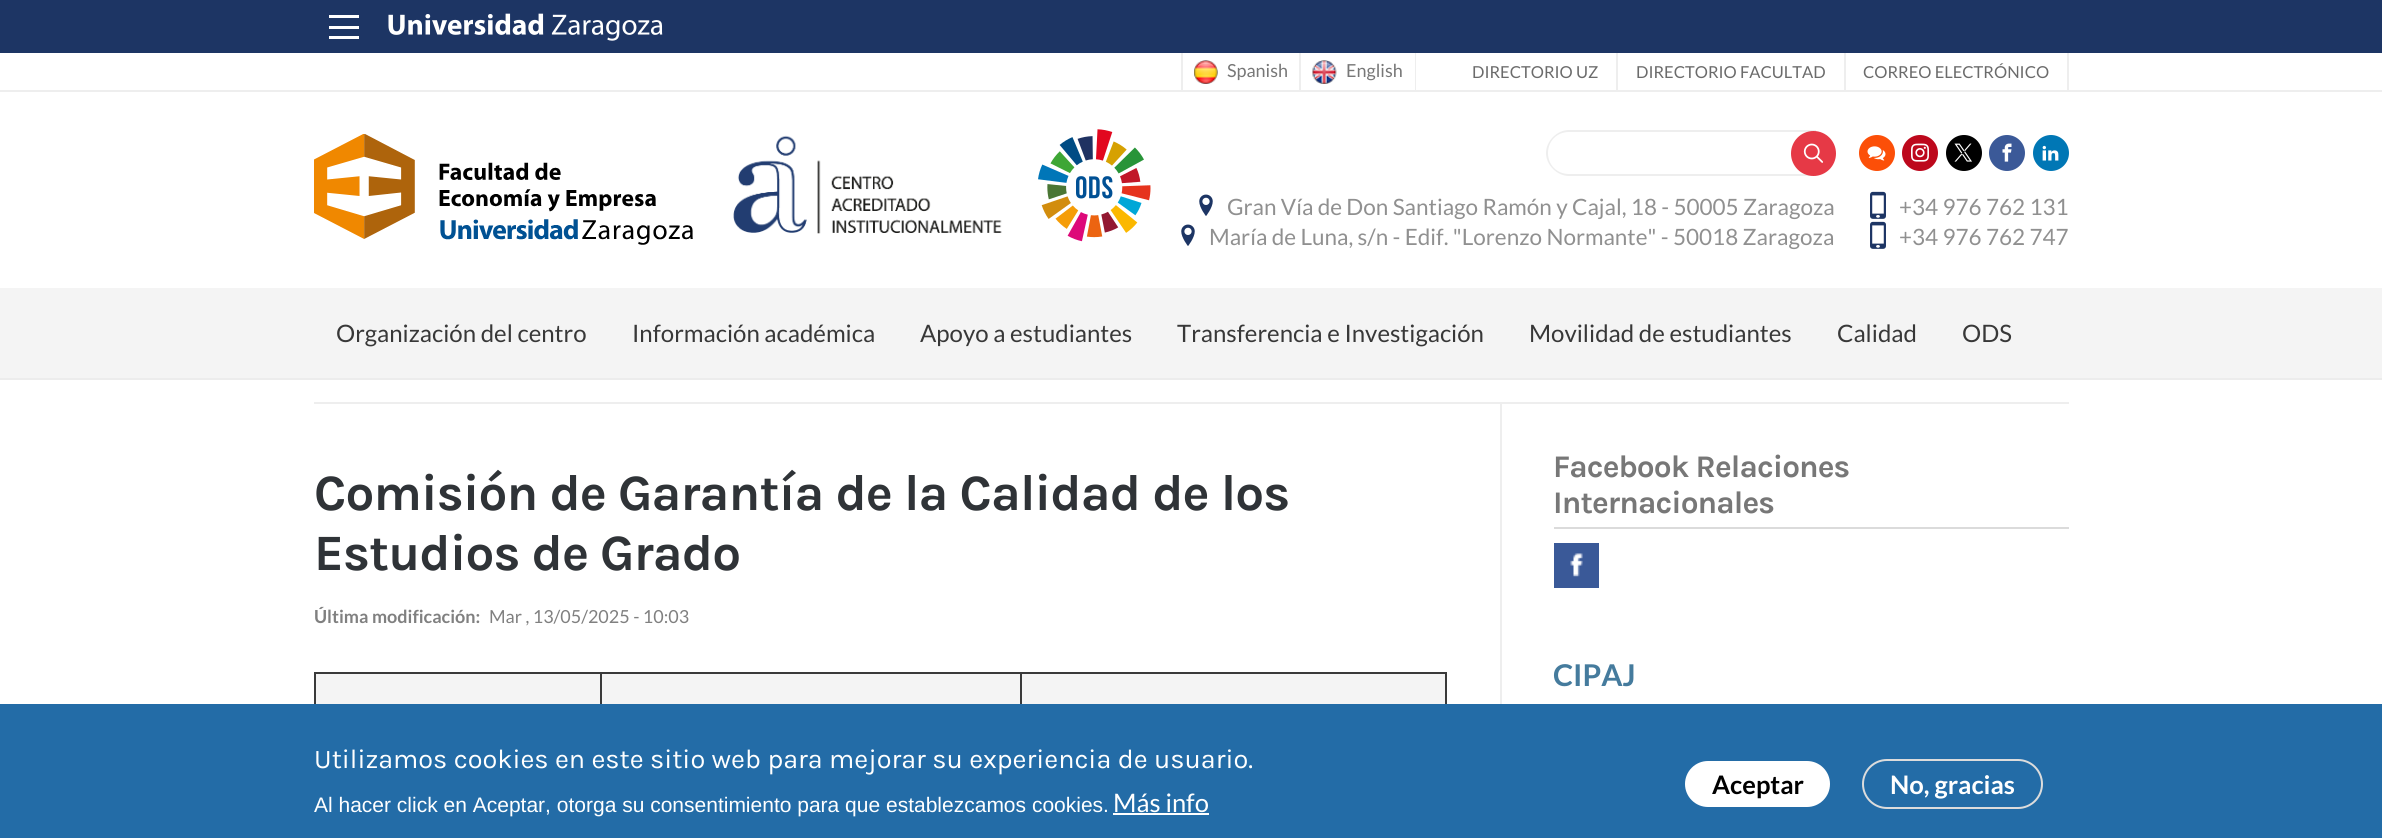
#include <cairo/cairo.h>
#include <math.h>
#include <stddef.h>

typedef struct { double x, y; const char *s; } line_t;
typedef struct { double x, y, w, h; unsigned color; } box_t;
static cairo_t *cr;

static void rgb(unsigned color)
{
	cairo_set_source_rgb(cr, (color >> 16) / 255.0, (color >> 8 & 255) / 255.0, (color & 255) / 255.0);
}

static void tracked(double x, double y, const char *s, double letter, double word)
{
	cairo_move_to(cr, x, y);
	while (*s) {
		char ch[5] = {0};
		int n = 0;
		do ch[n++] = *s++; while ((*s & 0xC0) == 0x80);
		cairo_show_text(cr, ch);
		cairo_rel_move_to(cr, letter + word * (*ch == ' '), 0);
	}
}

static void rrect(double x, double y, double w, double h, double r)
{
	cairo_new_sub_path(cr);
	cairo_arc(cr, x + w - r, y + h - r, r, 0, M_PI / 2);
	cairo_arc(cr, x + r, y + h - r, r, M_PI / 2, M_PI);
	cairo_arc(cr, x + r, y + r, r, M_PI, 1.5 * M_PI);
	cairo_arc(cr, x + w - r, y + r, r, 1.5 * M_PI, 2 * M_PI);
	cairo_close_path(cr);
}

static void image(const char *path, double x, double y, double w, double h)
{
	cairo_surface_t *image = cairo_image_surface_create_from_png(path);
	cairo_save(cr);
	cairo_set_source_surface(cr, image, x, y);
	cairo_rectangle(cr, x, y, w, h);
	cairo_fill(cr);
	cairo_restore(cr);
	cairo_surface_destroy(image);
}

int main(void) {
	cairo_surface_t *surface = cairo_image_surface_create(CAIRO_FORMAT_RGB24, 2382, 838);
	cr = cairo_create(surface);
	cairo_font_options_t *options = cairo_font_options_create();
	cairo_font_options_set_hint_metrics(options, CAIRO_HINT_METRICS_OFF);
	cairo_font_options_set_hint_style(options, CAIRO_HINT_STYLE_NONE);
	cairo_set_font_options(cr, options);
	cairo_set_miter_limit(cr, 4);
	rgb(0xffffff);
	cairo_paint(cr);
	{
		static const box_t items[] = {
			{0, 378, 2382, 2, 0xececec},
			{0, 0, 2382, 53, 0x1d3564},
			{329, 26, 30, 3, 0xffffff},
			{329, 15, 30, 3, 0xffffff},
			{329, 36, 30, 3, 0xffffff},
		};
		for (size_t i = 0; i < sizeof items / sizeof *items; i++) {
			rgb(items[i].color);
			cairo_rectangle(cr, items[i].x, items[i].y, items[i].w, items[i].h);
			cairo_fill(cr);
		}
	}
	image("img/1.png", 388, 13, 275, 28);
	{
		static const box_t items[] = {
			{0, 90, 2382, 2, 0xeeeeee},
			{1299, 53, 2, 37, 0xeeeeee},
			{1181, 53, 2, 37, 0xeeeeee},
		};
		for (size_t i = 0; i < sizeof items / sizeof *items; i++) {
			rgb(items[i].color);
			cairo_rectangle(cr, items[i].x, items[i].y, items[i].w, items[i].h);
			cairo_fill(cr);
		}
	}
	image("img/2.png", 1194, 60, 24, 24);
	cairo_rectangle(cr, 1415, 53, 1, 37);
	cairo_fill(cr);
	image("img/3.png", 1312, 60, 25, 24);
	{
		static const box_t items[] = {
			{1616, 53, 2, 37, 0xeeeeee},
			{1844, 53, 2, 37, 0xeeeeee},
			{2067, 53, 2, 37, 0xeeeeee},
		};
		for (size_t i = 0; i < sizeof items / sizeof *items; i++) {
			rgb(items[i].color);
			cairo_rectangle(cr, items[i].x, items[i].y, items[i].w, items[i].h);
			cairo_fill(cr);
		}
	}
	image("img/4.png", 314, 134, 379, 111);
	image("img/5.png", 733, 135, 269, 99);
	image("img/6.png", 1038, 129, 113, 113);
	cairo_set_fill_rule(cr, CAIRO_FILL_RULE_EVEN_ODD);
	cairo_new_path(cr);
	cairo_move_to(cr, 1569, 130);
	cairo_line_to(cr, 1816, 130);
	cairo_line_to(cr, 1816, 176);
	cairo_line_to(cr, 1569, 176);
	cairo_curve_to(cr, 1557, 176, 1546, 165, 1546, 153);
	cairo_curve_to(cr, 1546, 141, 1557, 130, 1569, 130);
	cairo_close_path(cr);
	cairo_move_to(cr, 1569, 132);
	cairo_line_to(cr, 1816, 132);
	cairo_line_to(cr, 1816, 174);
	cairo_line_to(cr, 1569, 174);
	cairo_curve_to(cr, 1557, 174, 1548, 165, 1548, 153);
	cairo_curve_to(cr, 1548, 141, 1557, 132, 1569, 132);
	cairo_close_path(cr);
	cairo_fill(cr);
	rgb(0xe63946);
	cairo_arc(cr, 1813.5, 153.5, 22.5, 0, 2 * M_PI);
	cairo_fill(cr);
	image("img/7.png", 1803, 143, 20, 20);
	rgb(0xfc4f08);
	cairo_arc(cr, 1877, 153, 18, 0, 2 * M_PI);
	cairo_fill(cr);
	image("img/8.png", 1867, 146, 19, 15);
	rgb(0xbd081c);
	cairo_arc(cr, 1920, 153, 18, 0, 2 * M_PI);
	cairo_fill(cr);
	image("img/9.png", 1911, 143, 18, 19);
	rgb(0x000000);
	cairo_arc(cr, 1964, 153, 18, 0, 2 * M_PI);
	cairo_fill(cr);
	image("img/10.png", 1954, 143, 18, 19);
	rgb(0x3b5998);
	cairo_arc(cr, 2007, 153, 18, 0, 2 * M_PI);
	cairo_fill(cr);
	image("img/11.png", 2002, 143, 10, 19);
	rgb(0x0077b5);
	cairo_arc(cr, 2051, 153, 18, 0, 2 * M_PI);
	cairo_fill(cr);
	image("img/12.png", 2042, 145, 17, 16);
	image("img/13.png", 1199, 194, 14, 22);
	image("img/14.png", 1870, 191, 16, 28);
	image("img/13.png", 1181, 224, 14, 22);
	image("img/14.png", 1870, 221, 16, 28);
	{
		static const box_t items[] = {
			{0, 288, 2382, 90, 0xf4f4f4},
			{314, 402, 1755, 2, 0xeeeeee},
			{316, 674, 1129, 30, 0xf4f4f4},
			{1020, 672, 426, 2, 0x3a3a3a},
			{1020, 672, 2, 32, 0x3a3a3a},
			{600, 672, 422, 2, 0x3a3a3a},
			{600, 672, 2, 32, 0x3a3a3a},
			{314, 672, 288, 2, 0x3a3a3a},
			{314, 672, 2, 32, 0x3a3a3a},
			{1445, 672, 2, 32, 0x3a3a3a},
			{1500, 404, 2, 300, 0xeeeeee},
			{1554, 527, 515, 2, 0xdbdbdb},
		};
		for (size_t i = 0; i < sizeof items / sizeof *items; i++) {
			rgb(items[i].color);
			cairo_rectangle(cr, items[i].x, items[i].y, items[i].w, items[i].h);
			cairo_fill(cr);
		}
	}
	image("img/15.png", 1554, 543, 45, 45);
	rgb(0x236ca7);
	cairo_rectangle(cr, 0, 704, 2382, 134);
	cairo_fill(cr);
	rgb(0xffffff);
	cairo_rectangle(cr, 1113, 813, 96, 2);
	cairo_fill(cr);
	rrect(1685, 761, 145, 46, 23);
	cairo_fill(cr);
	rrect(1863, 760, 179, 48, 24);
	rgb(0xdcdcdc);
	cairo_stroke(cr);
	cairo_select_font_face(cr, "Lato", CAIRO_FONT_SLANT_NORMAL, CAIRO_FONT_WEIGHT_NORMAL);
	cairo_set_font_size(cr, 18);
	rgb(0x777777);
	cairo_move_to(cr, 1227, 77);
	cairo_show_text(cr, "Spanish");
	cairo_move_to(cr, 1346, 77);
	cairo_show_text(cr, "English");
	cairo_set_font_size(cr, 16.5);
	rgb(0x6b6b6b);
	{
		static const line_t items[] = {
			{1472, 78, "DIRECTORIO UZ"},
			{1636, 78, "DIRECTORIO FACULTAD"},
			{1863, 78, "CORREO ELECTRÓNICO"},
		};
		for (size_t i = 0; i < sizeof items / sizeof *items; i++) {
			cairo_move_to(cr, items[i].x, items[i].y);
			cairo_show_text(cr, items[i].s);
		}
	}
	cairo_set_font_size(cr, 22.5);
	rgb(0x909090);
	{
		static const line_t items[] = {
			{1227, 215, "Gran Vía de Don Santiago Ramón y Cajal, 18 - 50005 Zaragoza"},
			{1899, 215, "+34 976 762 131"},
			{1209, 245, "María de Luna, s/n - Edif. \"Lorenzo Normante\" - 50018 Zaragoza"},
			{1899, 245, "+34 976 762 747"},
		};
		for (size_t i = 0; i < sizeof items / sizeof *items; i++) {
			cairo_move_to(cr, items[i].x, items[i].y);
			cairo_show_text(cr, items[i].s);
		}
	}
	cairo_set_font_size(cr, 24);
	rgb(0x383838);
	{
		static const line_t items[] = {
			{336, 342, "Organización del centro"},
			{632, 342, "Información académica"},
			{920, 342, "Apoyo a estudiantes"},
			{1177, 342, "Transferencia e Investigación"},
			{1529, 342, "Movilidad de estudiantes"},
			{1837, 342, "Calidad"},
			{1962, 342, "ODS"},
		};
		for (size_t i = 0; i < sizeof items / sizeof *items; i++) {
			cairo_move_to(cr, items[i].x, items[i].y);
			cairo_show_text(cr, items[i].s);
		}
	}
	cairo_select_font_face(cr, "Karla", CAIRO_FONT_SLANT_NORMAL, CAIRO_FONT_WEIGHT_BOLD);
	cairo_set_font_size(cr, 51);
	rgb(0x2f3337);
	tracked(314, 510, "Comisión de Garantía de la Calidad de los", -0.9, 0);
	tracked(314, 570, "Estudios de Grado", -0.9, 0);
	cairo_select_font_face(cr, "Lato", CAIRO_FONT_SLANT_NORMAL, CAIRO_FONT_WEIGHT_BOLD);
	cairo_set_font_size(cr, 18);
	rgb(0x808080);
	cairo_move_to(cr, 314, 623);
	cairo_show_text(cr, "Última modificación:");
	cairo_select_font_face(cr, "Lato", CAIRO_FONT_SLANT_NORMAL, CAIRO_FONT_WEIGHT_NORMAL);
	cairo_move_to(cr, 489, 623);
	cairo_show_text(cr, "Mar , 13/05/2025 - 10:03");
	cairo_select_font_face(cr, "Karla", CAIRO_FONT_SLANT_NORMAL, CAIRO_FONT_WEIGHT_BOLD);
	cairo_set_font_size(cr, 31.5);
	rgb(0x777777);
	tracked(1553, 477, "Facebook Relaciones", -0.9, 0);
	tracked(1553, 513, "Internacionales", -0.9, 0);
	cairo_select_font_face(cr, "Lato", CAIRO_FONT_SLANT_NORMAL, CAIRO_FONT_WEIGHT_BOLD);
	cairo_set_font_size(cr, 30);
	rgb(0x457b9d);
	cairo_move_to(cr, 1553, 686);
	cairo_show_text(cr, "CIPAJ");
	cairo_select_font_face(cr, "Karla", CAIRO_FONT_SLANT_NORMAL, CAIRO_FONT_WEIGHT_NORMAL);
	cairo_set_font_size(cr, 27);
	rgb(0xffffff);
	cairo_move_to(cr, 314, 768);
	cairo_show_text(cr, "Utilizamos cookies en este sitio web para mejorar su experiencia de usuario.");
	cairo_select_font_face(cr, "Liberation Sans", CAIRO_FONT_SLANT_NORMAL, CAIRO_FONT_WEIGHT_NORMAL);
	cairo_set_font_size(cr, 21);
	cairo_move_to(cr, 314, 812);
	cairo_show_text(cr, "Al hacer click en Aceptar, otorga su consentimiento para que establezcamos cookies.");
	cairo_select_font_face(cr, "Lato", CAIRO_FONT_SLANT_NORMAL, CAIRO_FONT_WEIGHT_NORMAL);
	cairo_set_font_size(cr, 25.5);
	cairo_move_to(cr, 1113, 812);
	cairo_show_text(cr, "Más info");
	cairo_select_font_face(cr, "Lato", CAIRO_FONT_SLANT_NORMAL, CAIRO_FONT_WEIGHT_BOLD);
	rgb(0x000000);
	cairo_move_to(cr, 1712, 794);
	cairo_show_text(cr, "Aceptar");
	rgb(0xffffff);
	cairo_move_to(cr, 1890, 794);
	cairo_show_text(cr, "No, gracias");
	cairo_surface_write_to_png(surface, "page.png");
	cairo_font_options_destroy(options);
	cairo_destroy(cr);
	cairo_surface_destroy(surface);
	return 0;
}
